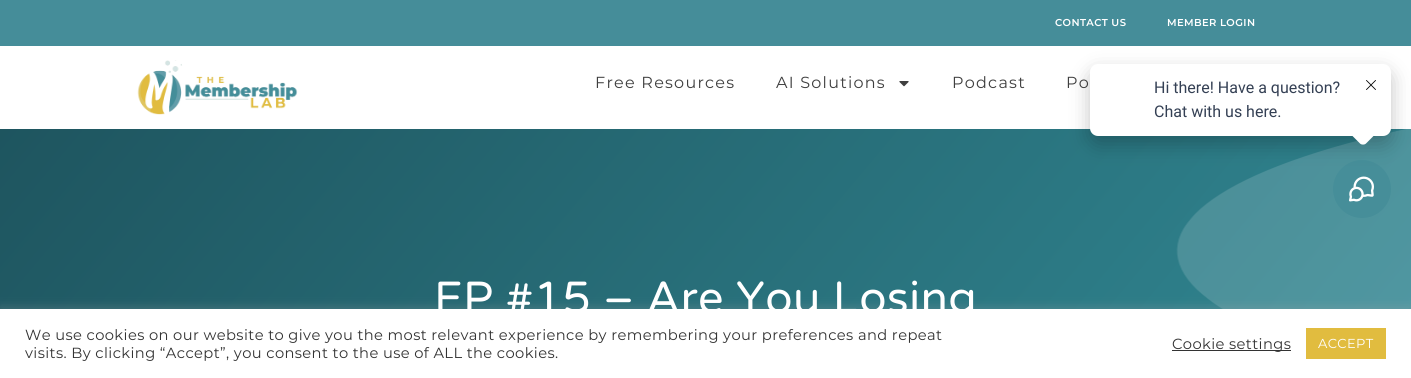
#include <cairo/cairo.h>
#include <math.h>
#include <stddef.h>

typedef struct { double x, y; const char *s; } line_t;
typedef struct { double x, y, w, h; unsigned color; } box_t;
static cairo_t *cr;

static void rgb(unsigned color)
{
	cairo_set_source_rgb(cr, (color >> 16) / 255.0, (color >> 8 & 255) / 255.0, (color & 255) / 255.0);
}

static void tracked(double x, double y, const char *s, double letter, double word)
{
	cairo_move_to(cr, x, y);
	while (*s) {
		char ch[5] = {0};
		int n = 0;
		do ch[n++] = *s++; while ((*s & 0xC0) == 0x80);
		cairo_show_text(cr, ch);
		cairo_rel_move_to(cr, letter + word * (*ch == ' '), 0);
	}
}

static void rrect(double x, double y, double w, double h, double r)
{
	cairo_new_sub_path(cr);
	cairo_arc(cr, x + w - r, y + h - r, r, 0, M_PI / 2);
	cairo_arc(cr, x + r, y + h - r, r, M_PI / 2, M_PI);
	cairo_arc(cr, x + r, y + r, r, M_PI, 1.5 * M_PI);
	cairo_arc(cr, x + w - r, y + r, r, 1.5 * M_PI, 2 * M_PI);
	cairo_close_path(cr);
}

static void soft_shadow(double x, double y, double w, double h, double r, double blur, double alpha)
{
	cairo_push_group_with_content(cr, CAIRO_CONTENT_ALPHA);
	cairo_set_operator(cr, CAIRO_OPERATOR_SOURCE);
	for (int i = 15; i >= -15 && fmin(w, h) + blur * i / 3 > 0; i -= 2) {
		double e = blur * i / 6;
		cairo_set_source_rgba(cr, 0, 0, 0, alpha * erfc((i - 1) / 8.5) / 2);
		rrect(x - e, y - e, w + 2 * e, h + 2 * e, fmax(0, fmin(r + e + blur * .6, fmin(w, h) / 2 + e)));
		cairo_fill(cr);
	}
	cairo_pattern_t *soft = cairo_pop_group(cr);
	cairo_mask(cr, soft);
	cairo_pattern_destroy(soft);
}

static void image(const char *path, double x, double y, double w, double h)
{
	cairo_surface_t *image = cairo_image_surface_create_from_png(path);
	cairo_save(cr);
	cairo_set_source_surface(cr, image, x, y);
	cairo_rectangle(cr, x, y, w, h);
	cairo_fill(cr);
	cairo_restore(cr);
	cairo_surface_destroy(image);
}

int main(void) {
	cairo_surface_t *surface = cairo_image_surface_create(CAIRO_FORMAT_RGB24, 1411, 378);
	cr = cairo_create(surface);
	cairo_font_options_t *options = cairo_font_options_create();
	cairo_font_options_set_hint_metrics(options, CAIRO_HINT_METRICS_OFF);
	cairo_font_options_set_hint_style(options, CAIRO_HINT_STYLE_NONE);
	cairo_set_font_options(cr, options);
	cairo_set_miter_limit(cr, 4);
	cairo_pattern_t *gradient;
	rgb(0xffffff);
	cairo_paint(cr);
	rgb(0x458d99);
	cairo_rectangle(cr, 0, 0, 1411, 46);
	cairo_fill(cr);
	image("img/1.png", 137, 60, 161, 55);
	image("img/2.png", 899, 81, 10, 6);
	gradient = cairo_pattern_create_linear(168, -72, 1243, 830);
	cairo_pattern_add_color_stop_rgba(gradient, 0, 0.118, 0.333, 0.373, 1);
	cairo_pattern_add_color_stop_rgba(gradient, 0.89, 0.192, 0.529, 0.573, 1);
	cairo_set_source(cr, gradient);
	cairo_pattern_destroy(gradient);
	cairo_rectangle(cr, 0, 129, 1411, 180);
	cairo_fill(cr);
	image("img/3.png", 1176, 129, 235, 180);
	rgb(0x468e99);
	cairo_arc(cr, 1362, 189, 29, 0, 2 * M_PI);
	cairo_fill(cr);
	rgb(0x000000);
	soft_shadow(1090, 72, 301, 72, 8, 10, 0.24);
	rgb(0xffffff);
	rrect(1090, 64, 301, 72, 8);
	cairo_fill(cr);
	cairo_new_path(cr);
	cairo_move_to(cr, 1366, 120.5);
	cairo_line_to(cr, 1374.5, 129);
	cairo_curve_to(cr, 1376, 130.5, 1376, 133.5, 1374.5, 135);
	cairo_line_to(cr, 1366, 143.5);
	cairo_curve_to(cr, 1364.5, 145, 1361.5, 145, 1360, 143.5);
	cairo_line_to(cr, 1351.5, 135);
	cairo_curve_to(cr, 1350, 133.5, 1350, 130.5, 1351.5, 129);
	cairo_line_to(cr, 1360, 120.5);
	cairo_curve_to(cr, 1361.5, 119, 1364.5, 119, 1366, 120.5);
	cairo_close_path(cr);
	cairo_fill(cr);
	image("img/4.png", 1366, 80, 10, 10);
	image("img/5.png", 1349, 176, 25, 26);
	rgb(0xacabab);
	soft_shadow(0, 308, 1411, 69, 0, 5, 0.3);
	{
		static const box_t items[] = {
			{0, 309, 1411, 69, 0xffffff},
			{1172, 350, 119, 1, 0x333333},
			{1306, 328, 80, 31, 0xe1bc3f},
		};
		for (size_t i = 0; i < sizeof items / sizeof *items; i++) {
			rgb(items[i].color);
			cairo_rectangle(cr, items[i].x, items[i].y, items[i].w, items[i].h);
			cairo_fill(cr);
		}
	}
	cairo_select_font_face(cr, "Montserrat SemiBold", CAIRO_FONT_SLANT_NORMAL, CAIRO_FONT_WEIGHT_NORMAL);
	cairo_set_font_size(cr, 10);
	rgb(0xffffff);
	tracked(1055, 26, "CONTACT US", 0.4, 0);
	tracked(1167, 26, "MEMBER LOGIN", 0.4, 0);
	cairo_select_font_face(cr, "Montserrat", CAIRO_FONT_SLANT_NORMAL, CAIRO_FONT_WEIGHT_NORMAL);
	cairo_set_font_size(cr, 16);
	rgb(0x3f3f3f);
	{
		static const line_t items[] = {
			{595, 88, "Free Resources"},
			{776, 88, "AI Solutions"},
			{952, 88, "Podcast"},
			{1066, 88, "Po"},
		};
		for (size_t i = 0; i < sizeof items / sizeof *items; i++) {
			tracked(items[i].x, items[i].y, items[i].s, 1.25, 0);
		}
	}
	cairo_select_font_face(cr, "Varela Round", CAIRO_FONT_SLANT_NORMAL, CAIRO_FONT_WEIGHT_NORMAL);
	cairo_set_font_size(cr, 45);
	rgb(0xffffff);
	tracked(434, 313, "EP #15 – Are You Losing", 0.4, 0);
	cairo_select_font_face(cr, "Roboto", CAIRO_FONT_SLANT_NORMAL, CAIRO_FONT_WEIGHT_NORMAL);
	cairo_set_font_size(cr, 16);
	rgb(0x344054);
	cairo_move_to(cr, 1154, 93);
	cairo_show_text(cr, "Hi there! Have a question?");
	cairo_move_to(cr, 1154, 117);
	cairo_show_text(cr, "Chat with us here.");
	cairo_select_font_face(cr, "Montserrat", CAIRO_FONT_SLANT_NORMAL, CAIRO_FONT_WEIGHT_NORMAL);
	cairo_set_font_size(cr, 14.67);
	rgb(0x333333);
	{
		static const line_t items[] = {
			{25, 340, "We use cookies on our website to give you the most relevant experience by remembering your preferences and repeat"},
			{25, 358, "visits. By clicking “Accept”, you consent to the use of ALL the cookies."},
			{1172, 349, "Cookie settings"},
		};
		for (size_t i = 0; i < sizeof items / sizeof *items; i++) {
			tracked(items[i].x, items[i].y, items[i].s, 0.4, 0);
		}
	}
	cairo_set_font_size(cr, 13);
	rgb(0xffffff);
	tracked(1318, 348, "ACCEPT", 0.4, 0);
	cairo_surface_write_to_png(surface, "page.png");
	cairo_font_options_destroy(options);
	cairo_destroy(cr);
	cairo_surface_destroy(surface);
	return 0;
}
